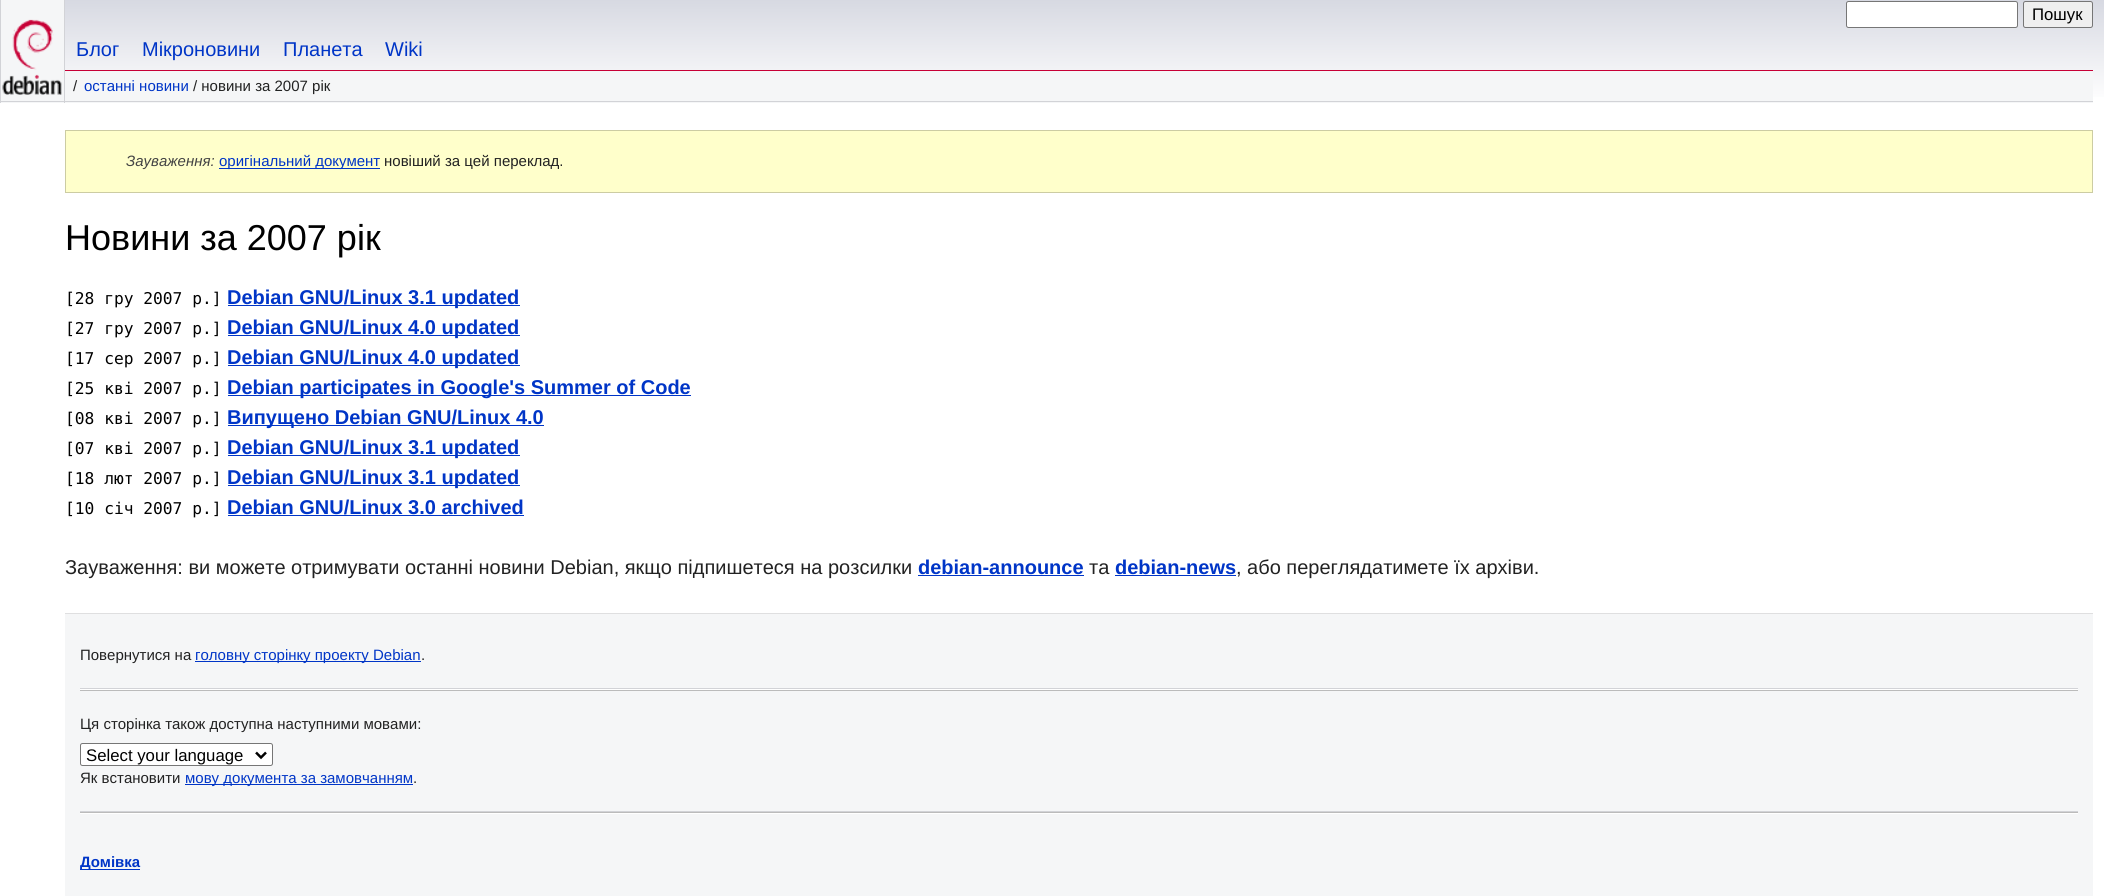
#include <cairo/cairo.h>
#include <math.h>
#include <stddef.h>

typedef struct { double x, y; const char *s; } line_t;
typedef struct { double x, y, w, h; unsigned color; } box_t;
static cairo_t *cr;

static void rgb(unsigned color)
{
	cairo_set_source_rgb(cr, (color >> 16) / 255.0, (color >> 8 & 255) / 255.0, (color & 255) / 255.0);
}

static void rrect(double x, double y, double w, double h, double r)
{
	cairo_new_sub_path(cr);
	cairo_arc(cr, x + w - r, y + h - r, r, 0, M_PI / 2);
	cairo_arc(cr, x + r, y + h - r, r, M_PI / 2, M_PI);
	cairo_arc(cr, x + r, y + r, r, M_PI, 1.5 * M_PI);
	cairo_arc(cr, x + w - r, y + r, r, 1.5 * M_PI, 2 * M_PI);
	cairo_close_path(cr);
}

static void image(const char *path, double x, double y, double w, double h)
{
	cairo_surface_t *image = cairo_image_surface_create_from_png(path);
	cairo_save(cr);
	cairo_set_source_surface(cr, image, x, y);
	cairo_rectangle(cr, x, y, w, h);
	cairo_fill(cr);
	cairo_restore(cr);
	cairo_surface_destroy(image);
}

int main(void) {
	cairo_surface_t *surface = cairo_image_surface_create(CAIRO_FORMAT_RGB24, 2104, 896);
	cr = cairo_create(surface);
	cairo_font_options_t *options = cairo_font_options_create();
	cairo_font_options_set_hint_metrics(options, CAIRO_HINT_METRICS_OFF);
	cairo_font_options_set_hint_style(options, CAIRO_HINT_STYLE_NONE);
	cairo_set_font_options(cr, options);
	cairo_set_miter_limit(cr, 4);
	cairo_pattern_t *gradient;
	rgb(0xffffff);
	cairo_paint(cr);
	gradient = cairo_pattern_create_linear(1053, 0, 1053, 103);
	cairo_pattern_add_color_stop_rgba(gradient, 0, 0.843, 0.851, 0.886, 1);
	cairo_pattern_add_color_stop_rgba(gradient, 1, 1, 1, 1, 1);
	cairo_set_source(cr, gradient);
	cairo_pattern_destroy(gradient);
	cairo_rectangle(cr, 65, 0, 2039, 97);
	cairo_fill(cr);
	{
		static const box_t items[] = {
			{1, 0, 63, 103, 0xf5f6f7},
			{64, 0, 1, 103, 0xd2d3d7},
			{0, 101, 65, 1, 0xd2d3d7},
			{0, 0, 1, 103, 0xd2d3d7},
		};
		for (size_t i = 0; i < sizeof items / sizeof *items; i++) {
			rgb(items[i].color);
			cairo_rectangle(cr, items[i].x, items[i].y, items[i].w, items[i].h);
			cairo_fill(cr);
		}
	}
	image("img/1.png", 2, 19, 60, 76);
	rgb(0xffffff);
	rrect(1846.5, 1.5, 171, 26, 2);
	cairo_fill_preserve(cr);
	rgb(0x767676);
	cairo_set_line_width(cr, 1);
	cairo_stroke(cr);
	rgb(0xefefef);
	rrect(2023.5, 1.5, 69, 26, 2);
	cairo_fill_preserve(cr);
	rgb(0x767676);
	cairo_stroke(cr);
	{
		static const box_t items[] = {
			{65, 70, 2028, 1, 0xc70036},
			{65, 71, 2028, 32, 0xf5f6f7},
			{65, 101, 2028, 1, 0xd2d3d7},
		};
		for (size_t i = 0; i < sizeof items / sizeof *items; i++) {
			rgb(items[i].color);
			cairo_rectangle(cr, items[i].x, items[i].y, items[i].w, items[i].h);
			cairo_fill(cr);
		}
	}
	rgb(0xffffcb);
	cairo_rectangle(cr, 65.5, 130.5, 2027, 62);
	cairo_fill_preserve(cr);
	rgb(0xcccca3);
	cairo_stroke(cr);
	{
		static const box_t items[] = {
			{219, 168, 161, 1, 0x0035c7},
			{228, 305, 292, 1, 0x0035c7},
			{228, 335, 292, 1, 0x0035c7},
			{228, 365, 292, 1, 0x0035c7},
			{228, 395, 463, 1, 0x0035c7},
			{228, 425, 316, 1, 0x0035c7},
			{228, 455, 292, 1, 0x0035c7},
			{228, 485, 292, 1, 0x0035c7},
			{228, 515, 296, 1, 0x0035c7},
			{918, 575, 166, 1, 0x0035c7},
			{1115, 575, 121, 1, 0x0035c7},
			{65, 614, 2028, 282, 0xf5f6f7},
			{65, 613, 2028, 1, 0xdfdfe0},
			{195, 661, 226, 1, 0x0035c7},
			{80, 690, 1998, 1, 0xbbbbbb},
			{80, 688, 1998, 1, 0xd2d3d7},
			{80, 689, 1998, 1, 0xffffff},
		};
		for (size_t i = 0; i < sizeof items / sizeof *items; i++) {
			rgb(items[i].color);
			cairo_rectangle(cr, items[i].x, items[i].y, items[i].w, items[i].h);
			cairo_fill(cr);
		}
	}
	rrect(80.5, 743.5, 192, 22, 2);
	cairo_fill_preserve(cr);
	rgb(0x767676);
	cairo_stroke(cr);
	cairo_new_path(cr);
	cairo_move_to(cr, 256, 752.5);
	cairo_line_to(cr, 261, 757.5);
	cairo_line_to(cr, 266, 752.5);
	rgb(0x000000);
	cairo_set_line_width(cr, 2.5);
	cairo_stroke(cr);
	{
		static const box_t items[] = {
			{185, 784, 228, 1, 0x0035c7},
			{80, 812, 1998, 1, 0xbbbbbb},
			{80, 811, 1998, 1, 0xd2d3d7},
			{80, 813, 1998, 1, 0xffffff},
			{80, 869, 60, 1, 0x0035c7},
		};
		for (size_t i = 0; i < sizeof items / sizeof *items; i++) {
			rgb(items[i].color);
			cairo_rectangle(cr, items[i].x, items[i].y, items[i].w, items[i].h);
			cairo_fill(cr);
		}
	}
	cairo_select_font_face(cr, "Liberation Sans", CAIRO_FONT_SLANT_NORMAL, CAIRO_FONT_WEIGHT_NORMAL);
	cairo_set_font_size(cr, 16.75);
	rgb(0x000000);
	cairo_move_to(cr, 2032, 20);
	cairo_show_text(cr, "Пошук");
	cairo_set_font_size(cr, 20);
	rgb(0x0035c7);
	{
		static const line_t items[] = {
			{76, 56, "Блог"},
			{142, 56, "Мікроновини"},
			{283, 56, "Планета"},
			{385, 56, "Wiki"},
		};
		for (size_t i = 0; i < sizeof items / sizeof *items; i++) {
			cairo_move_to(cr, items[i].x, items[i].y);
			cairo_show_text(cr, items[i].s);
		}
	}
	cairo_set_font_size(cr, 15);
	rgb(0x222222);
	cairo_move_to(cr, 73, 91);
	cairo_show_text(cr, "/");
	rgb(0x0035c7);
	cairo_move_to(cr, 84, 91);
	cairo_show_text(cr, "останні новини");
	rgb(0x222222);
	cairo_move_to(cr, 193, 91);
	cairo_show_text(cr, "/ новини за 2007 рік");
	cairo_select_font_face(cr, "Liberation Sans", CAIRO_FONT_SLANT_ITALIC, CAIRO_FONT_WEIGHT_NORMAL);
	rgb(0x444444);
	cairo_move_to(cr, 126, 166);
	cairo_show_text(cr, "Зауваження:");
	cairo_select_font_face(cr, "Liberation Sans", CAIRO_FONT_SLANT_NORMAL, CAIRO_FONT_WEIGHT_NORMAL);
	rgb(0x0035c7);
	cairo_move_to(cr, 219, 166);
	cairo_show_text(cr, "оригінальний документ");
	rgb(0x222222);
	cairo_move_to(cr, 384, 166);
	cairo_show_text(cr, "новіший за цей переклад.");
	cairo_set_font_size(cr, 36);
	rgb(0x000000);
	cairo_move_to(cr, 65, 250);
	cairo_show_text(cr, "Новини за 2007 рік");
	cairo_select_font_face(cr, "DejaVu Sans Mono", CAIRO_FONT_SLANT_NORMAL, CAIRO_FONT_WEIGHT_NORMAL);
	cairo_set_font_size(cr, 16.25);
	cairo_move_to(cr, 65, 304);
	cairo_show_text(cr, "[28 гру 2007 р.]");
	cairo_select_font_face(cr, "Liberation Sans", CAIRO_FONT_SLANT_NORMAL, CAIRO_FONT_WEIGHT_BOLD);
	cairo_set_font_size(cr, 20);
	rgb(0x0035c7);
	cairo_move_to(cr, 227, 304);
	cairo_show_text(cr, "Debian GNU/Linux 3.1 updated");
	cairo_select_font_face(cr, "DejaVu Sans Mono", CAIRO_FONT_SLANT_NORMAL, CAIRO_FONT_WEIGHT_NORMAL);
	cairo_set_font_size(cr, 16.25);
	rgb(0x000000);
	cairo_move_to(cr, 65, 334);
	cairo_show_text(cr, "[27 гру 2007 р.]");
	cairo_select_font_face(cr, "Liberation Sans", CAIRO_FONT_SLANT_NORMAL, CAIRO_FONT_WEIGHT_BOLD);
	cairo_set_font_size(cr, 20);
	rgb(0x0035c7);
	cairo_move_to(cr, 227, 334);
	cairo_show_text(cr, "Debian GNU/Linux 4.0 updated");
	cairo_select_font_face(cr, "DejaVu Sans Mono", CAIRO_FONT_SLANT_NORMAL, CAIRO_FONT_WEIGHT_NORMAL);
	cairo_set_font_size(cr, 16.25);
	rgb(0x000000);
	cairo_move_to(cr, 65, 364);
	cairo_show_text(cr, "[17 сер 2007 р.]");
	cairo_select_font_face(cr, "Liberation Sans", CAIRO_FONT_SLANT_NORMAL, CAIRO_FONT_WEIGHT_BOLD);
	cairo_set_font_size(cr, 20);
	rgb(0x0035c7);
	cairo_move_to(cr, 227, 364);
	cairo_show_text(cr, "Debian GNU/Linux 4.0 updated");
	cairo_select_font_face(cr, "DejaVu Sans Mono", CAIRO_FONT_SLANT_NORMAL, CAIRO_FONT_WEIGHT_NORMAL);
	cairo_set_font_size(cr, 16.25);
	rgb(0x000000);
	cairo_move_to(cr, 65, 394);
	cairo_show_text(cr, "[25 кві 2007 р.]");
	cairo_select_font_face(cr, "Liberation Sans", CAIRO_FONT_SLANT_NORMAL, CAIRO_FONT_WEIGHT_BOLD);
	cairo_set_font_size(cr, 20);
	rgb(0x0035c7);
	cairo_move_to(cr, 227, 394);
	cairo_show_text(cr, "Debian participates in Google's Summer of Code");
	cairo_select_font_face(cr, "DejaVu Sans Mono", CAIRO_FONT_SLANT_NORMAL, CAIRO_FONT_WEIGHT_NORMAL);
	cairo_set_font_size(cr, 16.25);
	rgb(0x000000);
	cairo_move_to(cr, 65, 424);
	cairo_show_text(cr, "[08 кві 2007 р.]");
	cairo_select_font_face(cr, "Liberation Sans", CAIRO_FONT_SLANT_NORMAL, CAIRO_FONT_WEIGHT_BOLD);
	cairo_set_font_size(cr, 20);
	rgb(0x0035c7);
	cairo_move_to(cr, 227, 424);
	cairo_show_text(cr, "Випущено Debian GNU/Linux 4.0");
	cairo_select_font_face(cr, "DejaVu Sans Mono", CAIRO_FONT_SLANT_NORMAL, CAIRO_FONT_WEIGHT_NORMAL);
	cairo_set_font_size(cr, 16.25);
	rgb(0x000000);
	cairo_move_to(cr, 65, 454);
	cairo_show_text(cr, "[07 кві 2007 р.]");
	cairo_select_font_face(cr, "Liberation Sans", CAIRO_FONT_SLANT_NORMAL, CAIRO_FONT_WEIGHT_BOLD);
	cairo_set_font_size(cr, 20);
	rgb(0x0035c7);
	cairo_move_to(cr, 227, 454);
	cairo_show_text(cr, "Debian GNU/Linux 3.1 updated");
	cairo_select_font_face(cr, "DejaVu Sans Mono", CAIRO_FONT_SLANT_NORMAL, CAIRO_FONT_WEIGHT_NORMAL);
	cairo_set_font_size(cr, 16.25);
	rgb(0x000000);
	cairo_move_to(cr, 65, 484);
	cairo_show_text(cr, "[18 лют 2007 р.]");
	cairo_select_font_face(cr, "Liberation Sans", CAIRO_FONT_SLANT_NORMAL, CAIRO_FONT_WEIGHT_BOLD);
	cairo_set_font_size(cr, 20);
	rgb(0x0035c7);
	cairo_move_to(cr, 227, 484);
	cairo_show_text(cr, "Debian GNU/Linux 3.1 updated");
	cairo_select_font_face(cr, "DejaVu Sans Mono", CAIRO_FONT_SLANT_NORMAL, CAIRO_FONT_WEIGHT_NORMAL);
	cairo_set_font_size(cr, 16.25);
	rgb(0x000000);
	cairo_move_to(cr, 65, 514);
	cairo_show_text(cr, "[10 січ 2007 р.]");
	cairo_select_font_face(cr, "Liberation Sans", CAIRO_FONT_SLANT_NORMAL, CAIRO_FONT_WEIGHT_BOLD);
	cairo_set_font_size(cr, 20);
	rgb(0x0035c7);
	cairo_move_to(cr, 227, 514);
	cairo_show_text(cr, "Debian GNU/Linux 3.0 archived");
	cairo_select_font_face(cr, "Liberation Sans", CAIRO_FONT_SLANT_NORMAL, CAIRO_FONT_WEIGHT_NORMAL);
	rgb(0x222222);
	cairo_move_to(cr, 65, 574);
	cairo_show_text(cr, "Зауваження: ви можете отримувати останні новини Debian, якщо підпишетеся на розсилки");
	cairo_select_font_face(cr, "Liberation Sans", CAIRO_FONT_SLANT_NORMAL, CAIRO_FONT_WEIGHT_BOLD);
	rgb(0x0035c7);
	cairo_move_to(cr, 918, 574);
	cairo_show_text(cr, "debian-announce");
	cairo_select_font_face(cr, "Liberation Sans", CAIRO_FONT_SLANT_NORMAL, CAIRO_FONT_WEIGHT_NORMAL);
	rgb(0x222222);
	cairo_move_to(cr, 1089, 574);
	cairo_show_text(cr, "та");
	cairo_select_font_face(cr, "Liberation Sans", CAIRO_FONT_SLANT_NORMAL, CAIRO_FONT_WEIGHT_BOLD);
	rgb(0x0035c7);
	cairo_move_to(cr, 1115, 574);
	cairo_show_text(cr, "debian-news");
	cairo_select_font_face(cr, "Liberation Sans", CAIRO_FONT_SLANT_NORMAL, CAIRO_FONT_WEIGHT_NORMAL);
	rgb(0x222222);
	cairo_move_to(cr, 1236, 574);
	cairo_show_text(cr, ", або переглядатимете їх архіви.");
	cairo_set_font_size(cr, 15);
	cairo_move_to(cr, 80, 660);
	cairo_show_text(cr, "Повернутися на");
	rgb(0x0035c7);
	cairo_move_to(cr, 195, 660);
	cairo_show_text(cr, "головну сторінку проекту Debian");
	rgb(0x222222);
	cairo_move_to(cr, 421, 660);
	cairo_show_text(cr, ".");
	cairo_move_to(cr, 80, 729);
	cairo_show_text(cr, "Ця сторінка також доступна наступними мовами:");
	cairo_set_font_size(cr, 16.75);
	rgb(0x000000);
	cairo_move_to(cr, 86, 761);
	cairo_show_text(cr, "Select your language");
	cairo_set_font_size(cr, 15);
	rgb(0x222222);
	cairo_move_to(cr, 80, 783);
	cairo_show_text(cr, "Як встановити");
	rgb(0x0035c7);
	cairo_move_to(cr, 185, 783);
	cairo_show_text(cr, "мову документа за замовчанням");
	rgb(0x222222);
	cairo_move_to(cr, 413, 783);
	cairo_show_text(cr, ".");
	cairo_select_font_face(cr, "Liberation Sans", CAIRO_FONT_SLANT_NORMAL, CAIRO_FONT_WEIGHT_BOLD);
	rgb(0x0035c7);
	cairo_move_to(cr, 80, 867);
	cairo_show_text(cr, "Домівка");
	cairo_surface_write_to_png(surface, "page.png");
	cairo_font_options_destroy(options);
	cairo_destroy(cr);
	cairo_surface_destroy(surface);
	return 0;
}
